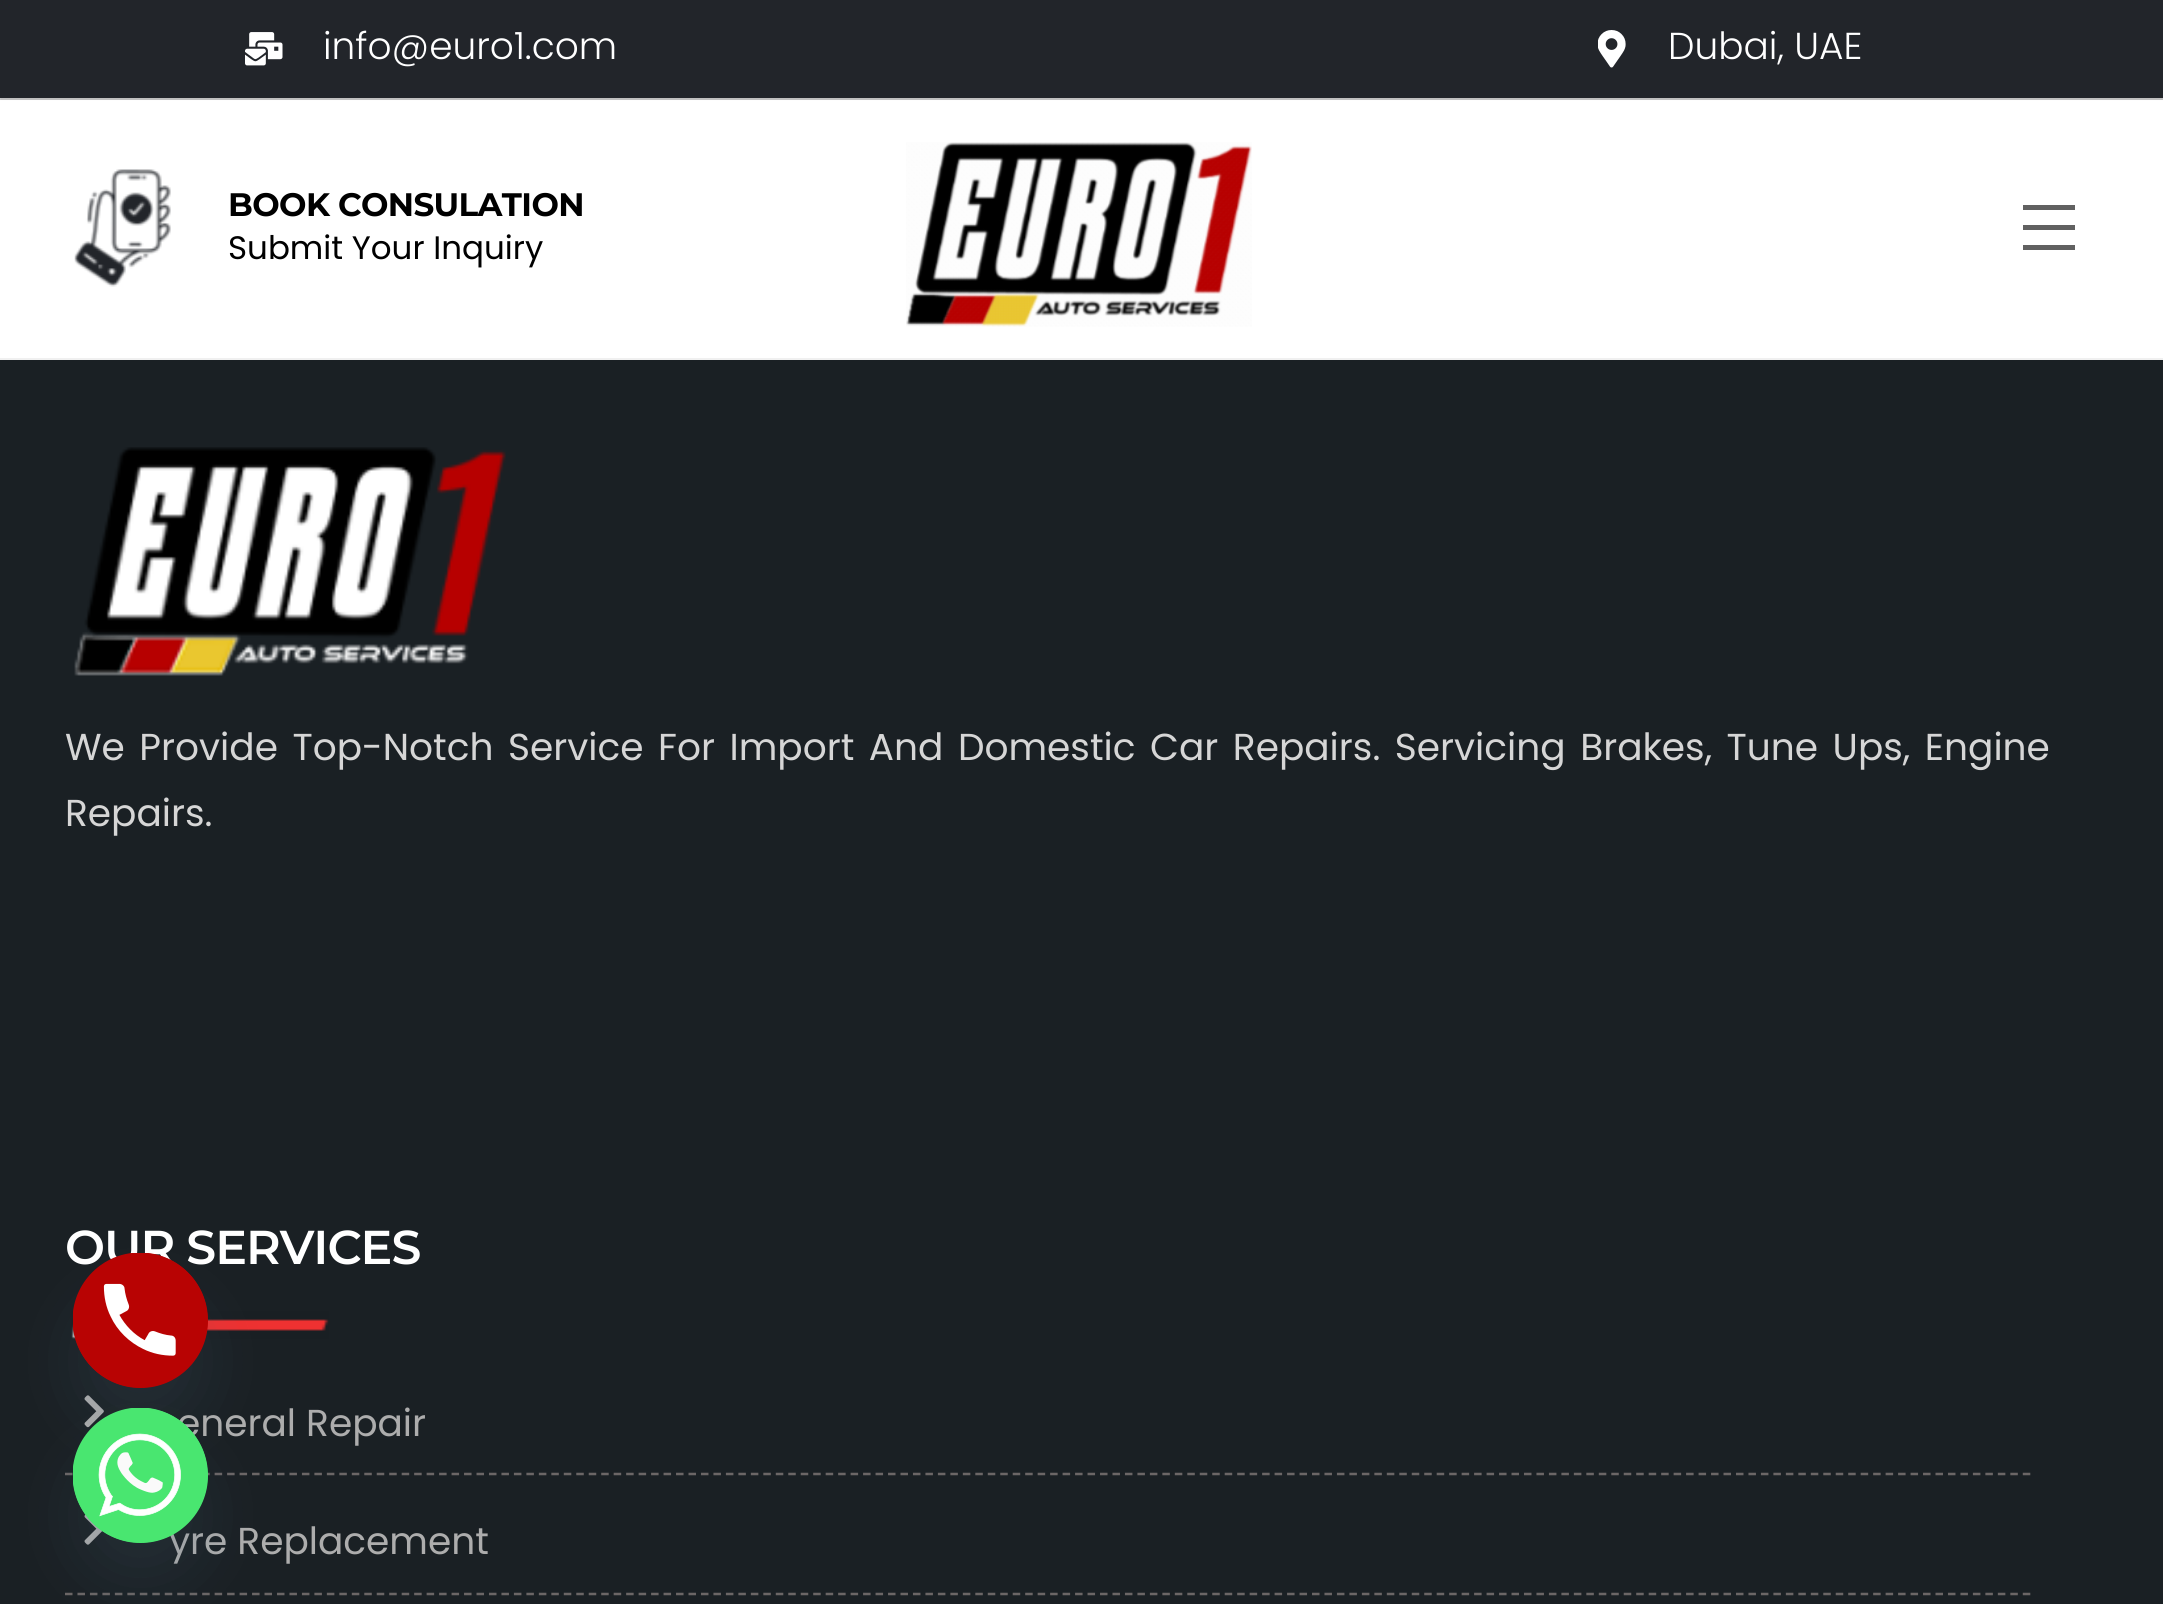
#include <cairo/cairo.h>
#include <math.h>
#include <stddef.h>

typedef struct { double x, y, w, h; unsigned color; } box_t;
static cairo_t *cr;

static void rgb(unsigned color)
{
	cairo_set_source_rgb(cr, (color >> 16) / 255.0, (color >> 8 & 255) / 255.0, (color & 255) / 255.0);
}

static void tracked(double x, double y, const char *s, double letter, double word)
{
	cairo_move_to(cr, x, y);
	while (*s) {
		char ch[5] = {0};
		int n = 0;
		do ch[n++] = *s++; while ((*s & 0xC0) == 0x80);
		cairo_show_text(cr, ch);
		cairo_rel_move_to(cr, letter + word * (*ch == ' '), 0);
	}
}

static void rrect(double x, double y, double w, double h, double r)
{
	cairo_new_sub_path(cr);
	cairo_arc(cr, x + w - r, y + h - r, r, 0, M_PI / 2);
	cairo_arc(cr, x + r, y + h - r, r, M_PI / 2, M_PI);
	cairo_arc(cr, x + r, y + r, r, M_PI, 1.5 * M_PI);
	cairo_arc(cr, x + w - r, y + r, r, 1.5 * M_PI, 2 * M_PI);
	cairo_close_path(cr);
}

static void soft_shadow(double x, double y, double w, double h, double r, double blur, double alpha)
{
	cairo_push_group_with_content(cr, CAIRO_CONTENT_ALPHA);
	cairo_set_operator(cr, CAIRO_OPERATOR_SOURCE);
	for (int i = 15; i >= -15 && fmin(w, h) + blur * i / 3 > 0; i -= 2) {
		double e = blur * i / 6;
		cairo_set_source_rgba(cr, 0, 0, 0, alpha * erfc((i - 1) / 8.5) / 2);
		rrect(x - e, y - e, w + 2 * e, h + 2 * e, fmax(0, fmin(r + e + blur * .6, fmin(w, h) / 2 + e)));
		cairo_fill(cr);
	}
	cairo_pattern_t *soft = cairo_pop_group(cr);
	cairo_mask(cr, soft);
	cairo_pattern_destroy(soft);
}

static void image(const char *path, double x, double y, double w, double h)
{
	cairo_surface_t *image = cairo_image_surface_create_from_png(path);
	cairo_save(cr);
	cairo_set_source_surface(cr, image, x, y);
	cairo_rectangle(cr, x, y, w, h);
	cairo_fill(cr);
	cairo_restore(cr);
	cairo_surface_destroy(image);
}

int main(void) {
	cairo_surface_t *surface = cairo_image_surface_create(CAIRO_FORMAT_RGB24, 2163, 1604);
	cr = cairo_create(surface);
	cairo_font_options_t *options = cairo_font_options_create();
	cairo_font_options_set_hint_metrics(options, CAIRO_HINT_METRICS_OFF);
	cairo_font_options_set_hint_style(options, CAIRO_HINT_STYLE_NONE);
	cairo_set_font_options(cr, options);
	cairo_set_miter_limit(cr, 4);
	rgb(0xffffff);
	cairo_paint(cr);
	rgb(0x616161);
	soft_shadow(0, 0, 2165, 98, 0, 1, 1);
	rgb(0x22252a);
	cairo_rectangle(cr, 0, 0, 2163, 98);
	cairo_fill(cr);
	image("img/1.png", 245, 32, 38, 34);
	image("img/2.png", 1598, 30, 28, 38);
	cairo_save(cr);
	cairo_rectangle(cr, 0, 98, 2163, 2);
	cairo_clip(cr);
	rgb(0x616161);
	soft_shadow(0, 100, 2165, 260, 0, 1, 1);
	cairo_restore(cr);
	rgb(0xf0f0f0);
	cairo_rectangle(cr, 0, 358, 2163, 2);
	cairo_fill(cr);
	image("img/3.png", 74, 169, 97, 118);
	image("img/4.png", 906, 142, 346, 185);
	{
		static const box_t items[] = {
			{2023, 245, 52, 5, 0x616161},
			{2023, 205, 52, 5, 0x616161},
			{2023, 225, 52, 5, 0x616161},
			{0, 360, 2163, 1244, 0x1a2024},
		};
		for (size_t i = 0; i < sizeof items / sizeof *items; i++) {
			rgb(items[i].color);
			cairo_rectangle(cr, items[i].x, items[i].y, items[i].w, items[i].h);
			cairo_fill(cr);
		}
	}
	image("img/5.png", 74, 447, 432, 229);
	image("img/6.png", 71, 1311, 258, 28);
	cairo_new_path(cr);
	cairo_move_to(cr, 65, 1474);
	cairo_line_to(cr, 2032.5, 1474);
	rgb(0x6b6666);
	cairo_set_line_width(cr, 2.5);
	cairo_set_dash(cr, (double[]){7.5, 4.97}, 2, 0);
	cairo_stroke(cr);
	image("img/7.png", 84, 1395, 20, 33);
	cairo_new_path(cr);
	cairo_move_to(cr, 65, 1594);
	cairo_line_to(cr, 2032.5, 1594);
	cairo_stroke(cr);
	image("img/8.png", 84, 1514, 19, 31);
	rgb(0x49687e);
	soft_shadow(73, 1293, 135, 135, 67.5, 30, 0.16);
	cairo_select_font_face(cr, "Poppins Light", CAIRO_FONT_SLANT_NORMAL, CAIRO_FONT_WEIGHT_NORMAL);
	cairo_set_font_size(cr, 37.5);
	rgb(0xffffff);
	cairo_move_to(cr, 323, 59);
	cairo_show_text(cr, "info@euro1.com");
	cairo_move_to(cr, 1668, 59);
	cairo_show_text(cr, "Dubai, UAE");
	cairo_select_font_face(cr, "Montserrat", CAIRO_FONT_SLANT_NORMAL, CAIRO_FONT_WEIGHT_BOLD);
	cairo_set_font_size(cr, 32.5);
	rgb(0x000000);
	tracked(228, 216, "BOOK CONSULATION", -0.6, 0);
	cairo_select_font_face(cr, "Poppins", CAIRO_FONT_SLANT_NORMAL, CAIRO_FONT_WEIGHT_NORMAL);
	cairo_move_to(cr, 228, 259);
	cairo_show_text(cr, "Submit Your Inquiry");
	cairo_set_font_size(cr, 37.5);
	rgb(0xd6d6d6);
	tracked(65, 760, "We Provide Top-Notch Service For Import And Domestic Car Repairs. Servicing Brakes, Tune Ups, Engine", 0, 4.5);
	cairo_move_to(cr, 65, 826);
	cairo_show_text(cr, "Repairs.");
	cairo_select_font_face(cr, "Montserrat SemiBold", CAIRO_FONT_SLANT_NORMAL, CAIRO_FONT_WEIGHT_NORMAL);
	cairo_set_font_size(cr, 47.5);
	rgb(0xffffff);
	tracked(65, 1264, "OUR SERVICES", -1, 0);
	cairo_select_font_face(cr, "Poppins", CAIRO_FONT_SLANT_NORMAL, CAIRO_FONT_WEIGHT_NORMAL);
	cairo_set_font_size(cr, 37.5);
	rgb(0xadadad);
	cairo_move_to(cr, 177, 1436);
	cairo_show_text(cr, "eneral Repair");
	cairo_move_to(cr, 169, 1554);
	cairo_show_text(cr, "yre Replacement");
	rgb(0xb80303);
	cairo_new_path(cr);
	cairo_arc(cr, 140.5, 1320.5, 67.5, 0, 2 * M_PI);
	cairo_fill(cr);
	image("img/9.png", 73, 1253, 135, 135);
	rgb(0x49687e);
	soft_shadow(73, 1448, 135, 135, 67.5, 30, 0.16);
	rgb(0x49e670);
	cairo_arc(cr, 140.5, 1475.5, 67.5, 0, 2 * M_PI);
	cairo_fill(cr);
	image("img/10.png", 73, 1408, 135, 135);
	cairo_surface_write_to_png(surface, "page.png");
	cairo_font_options_destroy(options);
	cairo_destroy(cr);
	cairo_surface_destroy(surface);
	return 0;
}
